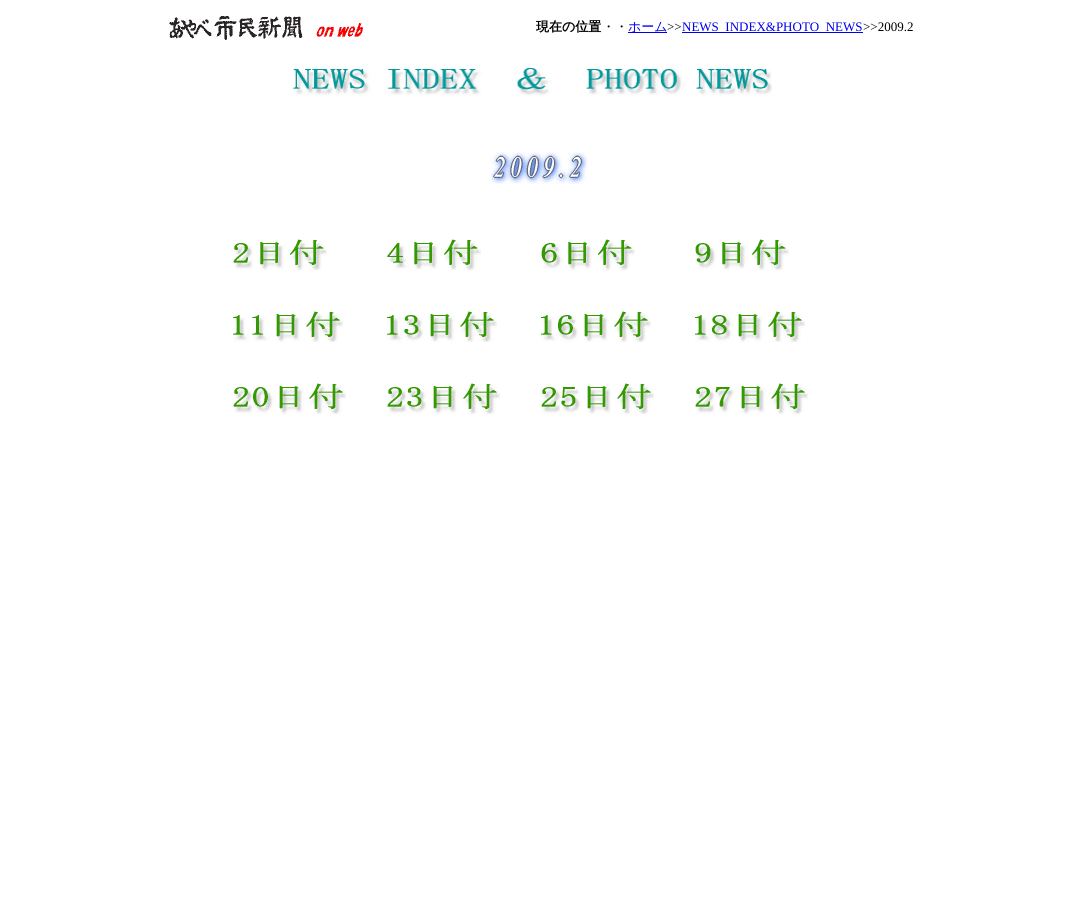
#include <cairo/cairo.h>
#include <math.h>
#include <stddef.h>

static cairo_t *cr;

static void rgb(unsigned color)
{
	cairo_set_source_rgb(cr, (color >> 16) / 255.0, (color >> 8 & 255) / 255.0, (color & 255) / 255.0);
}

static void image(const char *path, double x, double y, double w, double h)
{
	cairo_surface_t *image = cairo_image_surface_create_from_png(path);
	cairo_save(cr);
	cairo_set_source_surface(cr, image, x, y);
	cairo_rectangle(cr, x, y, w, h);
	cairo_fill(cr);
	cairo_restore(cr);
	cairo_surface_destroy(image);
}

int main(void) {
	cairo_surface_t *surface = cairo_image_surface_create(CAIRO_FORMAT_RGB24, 1078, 919);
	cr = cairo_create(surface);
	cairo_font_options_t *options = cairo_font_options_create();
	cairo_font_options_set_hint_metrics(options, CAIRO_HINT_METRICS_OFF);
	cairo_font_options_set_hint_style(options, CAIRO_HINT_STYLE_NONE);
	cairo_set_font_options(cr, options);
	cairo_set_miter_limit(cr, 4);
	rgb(0xffffff);
	cairo_paint(cr);
	image("img/1.png", 169, 16, 194, 24);
	rgb(0x0000ee);
	cairo_rectangle(cr, 628, 32, 39, 1);
	cairo_fill(cr);
	cairo_rectangle(cr, 682, 32, 181, 1);
	cairo_fill(cr);
	image("img/2.png", 293, 68, 479, 27);
	image("img/3.png", 490, 152, 98, 32);
	image("img/4.png", 233, 239, 94, 32);
	image("img/5.png", 387, 239, 94, 31);
	image("img/6.png", 541, 239, 94, 32);
	image("img/7.png", 695, 239, 94, 31);
	image("img/8.png", 233, 311, 110, 31);
	image("img/9.png", 387, 311, 110, 31);
	image("img/10.png", 541, 311, 110, 31);
	image("img/11.png", 695, 311, 110, 31);
	image("img/12.png", 233, 383, 113, 31);
	image("img/13.png", 387, 383, 113, 31);
	image("img/14.png", 541, 383, 113, 31);
	image("img/15.png", 695, 383, 113, 31);
	cairo_select_font_face(cr, "WenQuanYi Zen Hei", CAIRO_FONT_SLANT_NORMAL, CAIRO_FONT_WEIGHT_BOLD);
	cairo_set_font_size(cr, 13);
	rgb(0x000000);
	cairo_move_to(cr, 536, 31);
	cairo_show_text(cr, "現在の位置");
	cairo_select_font_face(cr, "WenQuanYi Zen Hei Medium", CAIRO_FONT_SLANT_NORMAL, CAIRO_FONT_WEIGHT_NORMAL);
	cairo_move_to(cr, 602, 31);
	cairo_show_text(cr, "・・");
	rgb(0x0000ee);
	cairo_move_to(cr, 628, 31);
	cairo_show_text(cr, "ホーム");
	cairo_select_font_face(cr, "Liberation Serif", CAIRO_FONT_SLANT_NORMAL, CAIRO_FONT_WEIGHT_NORMAL);
	rgb(0x000000);
	cairo_move_to(cr, 667, 31);
	cairo_show_text(cr, ">>");
	rgb(0x0000ee);
	cairo_move_to(cr, 682, 31);
	cairo_show_text(cr, "NEWS_INDEX&PHOTO_NEWS");
	rgb(0x000000);
	cairo_move_to(cr, 863, 31);
	cairo_show_text(cr, ">>2009.2");
	cairo_surface_write_to_png(surface, "page.png");
	cairo_font_options_destroy(options);
	cairo_destroy(cr);
	cairo_surface_destroy(surface);
	return 0;
}
